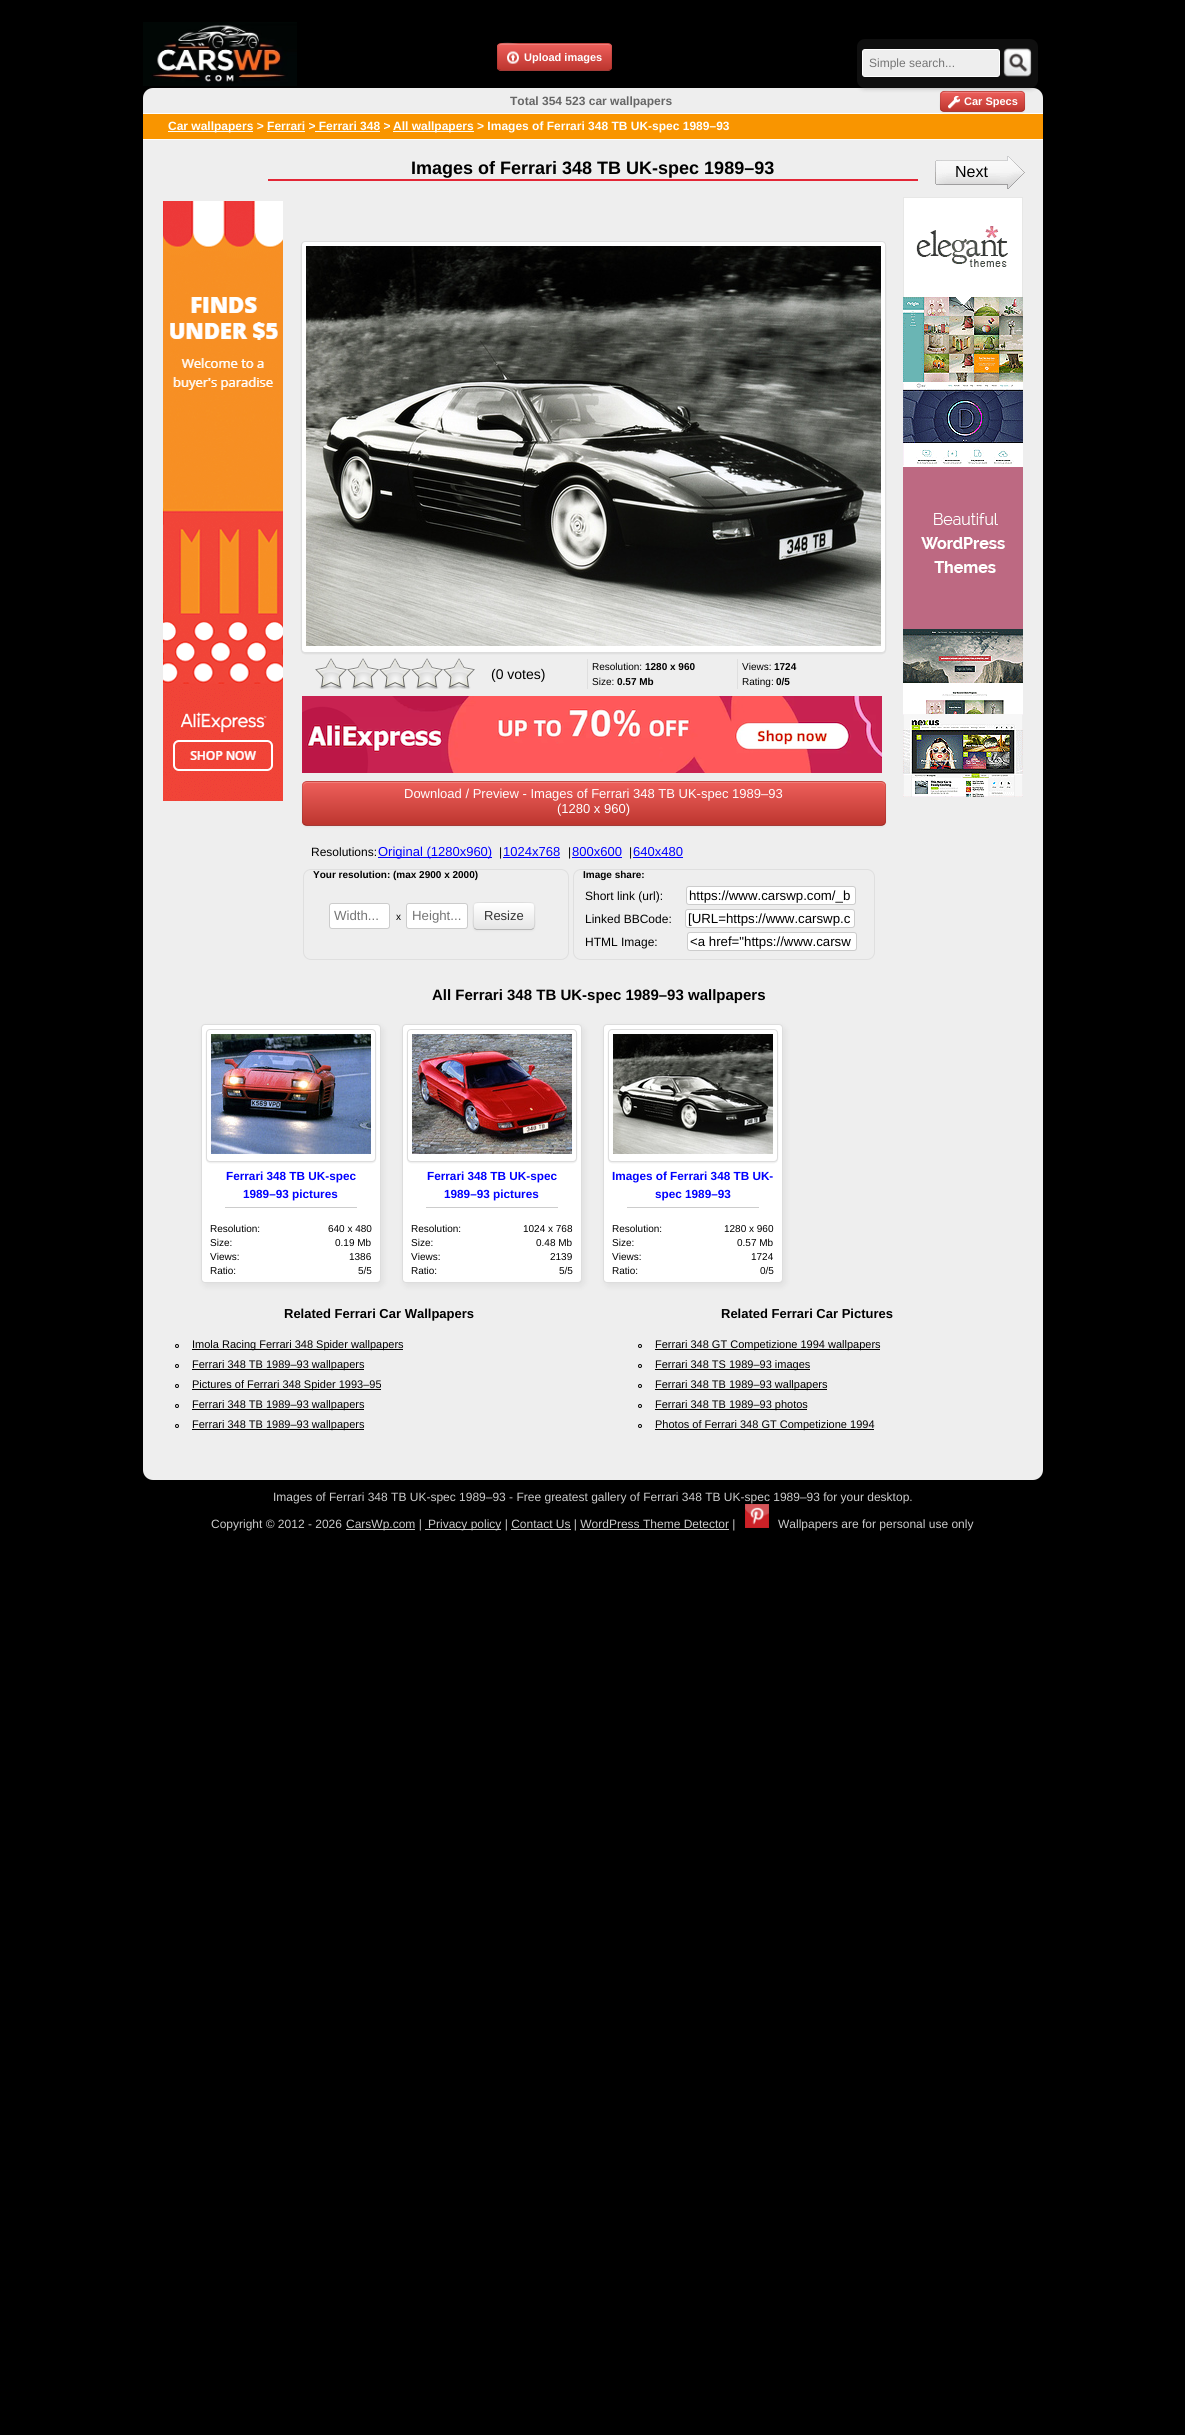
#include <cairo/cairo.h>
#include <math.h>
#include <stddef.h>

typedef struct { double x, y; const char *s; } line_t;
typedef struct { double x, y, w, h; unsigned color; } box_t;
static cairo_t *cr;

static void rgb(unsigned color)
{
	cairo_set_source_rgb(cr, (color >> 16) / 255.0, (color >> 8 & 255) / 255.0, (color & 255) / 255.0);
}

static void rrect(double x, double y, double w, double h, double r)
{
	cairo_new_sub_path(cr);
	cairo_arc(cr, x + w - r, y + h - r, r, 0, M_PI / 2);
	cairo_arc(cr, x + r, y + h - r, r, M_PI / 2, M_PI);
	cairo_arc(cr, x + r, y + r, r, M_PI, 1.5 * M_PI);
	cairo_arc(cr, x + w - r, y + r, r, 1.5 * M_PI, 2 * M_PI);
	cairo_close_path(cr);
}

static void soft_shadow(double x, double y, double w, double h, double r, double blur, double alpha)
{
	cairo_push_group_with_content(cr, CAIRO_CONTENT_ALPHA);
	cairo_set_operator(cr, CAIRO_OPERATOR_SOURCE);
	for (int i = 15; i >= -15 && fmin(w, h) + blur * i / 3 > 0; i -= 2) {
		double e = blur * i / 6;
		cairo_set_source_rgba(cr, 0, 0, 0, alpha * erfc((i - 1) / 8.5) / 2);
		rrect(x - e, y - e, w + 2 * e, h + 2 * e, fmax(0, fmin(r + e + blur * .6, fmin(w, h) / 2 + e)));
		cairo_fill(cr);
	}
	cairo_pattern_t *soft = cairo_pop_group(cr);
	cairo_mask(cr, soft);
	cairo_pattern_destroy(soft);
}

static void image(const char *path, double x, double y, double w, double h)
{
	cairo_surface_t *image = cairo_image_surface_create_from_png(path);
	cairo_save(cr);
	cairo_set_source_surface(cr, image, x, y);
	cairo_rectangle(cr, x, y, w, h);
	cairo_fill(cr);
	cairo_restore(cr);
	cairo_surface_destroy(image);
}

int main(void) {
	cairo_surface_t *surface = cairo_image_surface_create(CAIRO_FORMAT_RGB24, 1185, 2435);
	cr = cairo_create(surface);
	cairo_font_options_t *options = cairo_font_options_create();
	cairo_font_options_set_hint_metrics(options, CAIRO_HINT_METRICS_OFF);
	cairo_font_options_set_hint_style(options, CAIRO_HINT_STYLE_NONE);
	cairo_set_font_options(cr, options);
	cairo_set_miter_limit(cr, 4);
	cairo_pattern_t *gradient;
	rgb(0x000000);
	cairo_paint(cr);
	image("img/1.png", 143, 22, 154, 64);
	rgb(0xda4f49);
	rrect(497, 43, 115, 28, 4);
	cairo_fill(cr);
	cairo_save(cr);
	rrect(497, 43, 115, 28, 4);
	cairo_clip(cr);
	gradient = cairo_pattern_create_linear(555, 44, 555, 70);
	cairo_pattern_add_color_stop_rgba(gradient, 0, 0.933, 0.373, 0.357, 1);
	cairo_pattern_add_color_stop_rgba(gradient, 1, 0.741, 0.212, 0.184, 1);
	cairo_set_source(cr, gradient);
	cairo_pattern_destroy(gradient);
	cairo_rectangle(cr, 497, 44, 115, 26);
	cairo_fill(cr);
	cairo_restore(cr);
	cairo_set_source_rgba(cr, 1, 1, 1, 0.2);
	cairo_new_path(cr);
	cairo_move_to(cr, 501, 45);
	cairo_line_to(cr, 608, 45);
	cairo_curve_to(cr, 610, 45, 611, 46, 611, 48);
	cairo_curve_to(cr, 611, 46, 610, 44, 608, 44);
	cairo_line_to(cr, 519, 44);
	cairo_curve_to(cr, 517, 44, 498, 39, 498, 48);
	cairo_curve_to(cr, 498, 46, 499, 45, 501, 45);
	cairo_close_path(cr);
	cairo_fill(cr);
	cairo_new_path(cr);
	cairo_move_to(cr, 610.5, 69.5);
	cairo_line_to(cr, 608.5, 70.5);
	cairo_line_to(cr, 519, 70.5);
	cairo_line_to(cr, 501, 70.5);
	cairo_line_to(cr, 498.5, 69.5);
	cairo_set_source_rgba(cr, 0, 0, 0, 0.25);
	cairo_set_line_width(cr, 1);
	cairo_stroke(cr);
	cairo_new_path(cr);
	cairo_move_to(cr, 498.5, 69.5);
	cairo_curve_to(cr, 496.5, 67.5, 497.5, 63, 497.5, 60.5);
	cairo_curve_to(cr, 497.5, 39, 495, 43.5, 519, 43.5);
	cairo_line_to(cr, 590, 43.5);
	cairo_curve_to(cr, 614, 43.5, 611.5, 39, 611.5, 60.5);
	cairo_curve_to(cr, 611.5, 63, 612.5, 67.5, 610.5, 69.5);
	cairo_set_source_rgba(cr, 0, 0, 0, 0.1);
	cairo_stroke(cr);
	image("img/2.png", 507, 51, 12, 13);
	rgb(0xeeeeee);
	rrect(143, 88, 900, 1392, 10);
	cairo_fill(cr);
	rgb(0xf99500);
	cairo_rectangle(cr, 143, 114, 900, 25);
	cairo_fill(cr);
	rgb(0xffffff);
	cairo_rectangle(cr, 143, 113, 900, 1);
	cairo_fill(cr);
	rgb(0x000000);
	soft_shadow(940, 92, 85, 21, 4, 1, 0.05);
	rgb(0xda4f49);
	rrect(940, 91, 85, 21, 4);
	cairo_fill(cr);
	cairo_save(cr);
	rrect(940, 91, 85, 21, 4);
	cairo_clip(cr);
	gradient = cairo_pattern_create_linear(983, 92, 983, 111);
	cairo_pattern_add_color_stop_rgba(gradient, 0, 0.933, 0.373, 0.357, 1);
	cairo_pattern_add_color_stop_rgba(gradient, 1, 0.741, 0.212, 0.184, 1);
	cairo_set_source(cr, gradient);
	cairo_pattern_destroy(gradient);
	cairo_rectangle(cr, 940, 92, 85, 19);
	cairo_fill(cr);
	cairo_restore(cr);
	cairo_set_source_rgba(cr, 1, 1, 1, 0.2);
	cairo_new_path(cr);
	cairo_move_to(cr, 944, 93);
	cairo_line_to(cr, 1021, 93);
	cairo_curve_to(cr, 1023, 93, 1024, 94, 1024, 96);
	cairo_curve_to(cr, 1024, 89, 1012, 92, 1008, 92);
	cairo_line_to(cr, 957, 92);
	cairo_curve_to(cr, 953, 92, 941, 89, 941, 96);
	cairo_curve_to(cr, 941, 94, 942, 93, 944, 93);
	cairo_close_path(cr);
	cairo_fill(cr);
	cairo_new_path(cr);
	cairo_move_to(cr, 1023.5, 110.5);
	cairo_line_to(cr, 1021.5, 111.5);
	cairo_line_to(cr, 943.5, 111.5);
	cairo_line_to(cr, 941.5, 110.5);
	cairo_set_source_rgba(cr, 0, 0, 0, 0.25);
	cairo_stroke(cr);
	cairo_new_path(cr);
	cairo_move_to(cr, 941.5, 110.5);
	cairo_curve_to(cr, 939.5, 108.5, 940.5, 102, 940.5, 99.5);
	cairo_curve_to(cr, 940.5, 88, 943.5, 91.5, 957, 91.5);
	cairo_line_to(cr, 1008, 91.5);
	cairo_curve_to(cr, 1021.5, 91.5, 1024.5, 88, 1024.5, 99.5);
	cairo_curve_to(cr, 1024.5, 102, 1025.5, 108.5, 1023.5, 110.5);
	cairo_set_source_rgba(cr, 0, 0, 0, 0.1);
	cairo_stroke(cr);
	image("img/4.png", 948, 96, 12, 13);
	rgb(0x000000);
	soft_shadow(857, 39, 181, 49, 8, 2.5, 0.3);
	rgb(0x0f0f0f);
	rrect(857, 39, 181, 49, 8);
	cairo_fill(cr);
	rgb(0xeeeeee);
	rrect(862.5, 49.5, 137, 27, 2.5);
	cairo_fill_preserve(cr);
	rgb(0xffffff);
	cairo_stroke(cr);
	image("img/3.png", 1003, 48, 29, 29);
	{
		static const box_t items[] = {
			{143, 139, 900, 1, 0xffffff},
			{168, 131, 85, 1, 0xffffff},
			{393, 131, 81, 1, 0xffffff},
			{267, 131, 38, 1, 0xffffff},
			{315, 131, 65, 1, 0xffffff},
			{268, 179, 650, 2, 0xe32636},
		};
		for (size_t i = 0; i < sizeof items / sizeof *items; i++) {
			rgb(items[i].color);
			cairo_rectangle(cr, items[i].x, items[i].y, items[i].w, items[i].h);
			cairo_fill(cr);
		}
	}
	image("img/5.png", 935, 156, 90, 33);
	image("img/6.png", 163, 201, 120, 600);
	rgb(0x000000);
	soft_shadow(301, 242, 585, 412, 4, 0.5, 0.07);
	rgb(0xffffff);
	rrect(301.5, 241.5, 584, 411, 3.5);
	cairo_fill_preserve(cr);
	rgb(0xdddddd);
	cairo_stroke(cr);
	image("img/7.png", 306, 246, 575, 400);
	image("img/8.png", 315, 658, 160, 31);
	rgb(0xdfdfdf);
	cairo_rectangle(cr, 587, 659, 1, 30);
	cairo_fill(cr);
	cairo_rectangle(cr, 737, 659, 1, 30);
	cairo_fill(cr);
	image("img/9.png", 302, 696, 580, 77);
	rgb(0x000000);
	soft_shadow(302, 782, 584, 45, 5, 1, 0.05);
	rgb(0xda4f49);
	rrect(302, 781, 584, 45, 5);
	cairo_fill(cr);
	cairo_save(cr);
	rrect(302, 781, 584, 45, 5);
	cairo_clip(cr);
	gradient = cairo_pattern_create_linear(594, 782, 594, 825);
	cairo_pattern_add_color_stop_rgba(gradient, 0, 0.933, 0.373, 0.357, 1);
	cairo_pattern_add_color_stop_rgba(gradient, 1, 0.741, 0.212, 0.184, 1);
	cairo_set_source(cr, gradient);
	cairo_pattern_destroy(gradient);
	cairo_rectangle(cr, 302, 782, 584, 43);
	cairo_fill(cr);
	cairo_restore(cr);
	rgb(0xf17f7b);
	cairo_new_path(cr);
	cairo_move_to(cr, 307, 783);
	cairo_line_to(cr, 881, 783);
	cairo_curve_to(cr, 883, 783, 885, 785, 885, 787);
	cairo_line_to(cr, 885, 786);
	cairo_curve_to(cr, 885, 784, 883, 782, 881, 782);
	cairo_line_to(cr, 307, 782);
	cairo_curve_to(cr, 305, 782, 303, 784, 303, 786);
	cairo_line_to(cr, 303, 787);
	cairo_curve_to(cr, 303, 785, 305, 783, 307, 783);
	cairo_close_path(cr);
	cairo_fill(cr);
	cairo_new_path(cr);
	cairo_move_to(cr, 884, 824);
	cairo_curve_to(cr, 883.5, 825, 882, 825.5, 881, 825.5);
	cairo_line_to(cr, 307, 825.5);
	cairo_curve_to(cr, 306, 825.5, 304.5, 825, 304, 824);
	cairo_set_source_rgba(cr, 0, 0, 0, 0.25);
	cairo_stroke(cr);
	cairo_new_path(cr);
	cairo_move_to(cr, 304, 824);
	cairo_curve_to(cr, 303, 823.5, 302.5, 822, 302.5, 821);
	cairo_line_to(cr, 302.5, 786);
	cairo_curve_to(cr, 302.5, 785, 303, 783.5, 304, 783);
	cairo_curve_to(cr, 304.5, 782, 306, 781.5, 307, 781.5);
	cairo_line_to(cr, 881, 781.5);
	cairo_curve_to(cr, 882, 781.5, 883.5, 782, 884, 783);
	cairo_curve_to(cr, 885, 783.5, 885.5, 785, 885.5, 786);
	cairo_line_to(cr, 885.5, 821);
	cairo_curve_to(cr, 885.5, 822, 885, 823.5, 884, 824);
	cairo_set_source_rgba(cr, 0, 0, 0, 0.1);
	cairo_stroke(cr);
	{
		static const box_t items[] = {
			{378, 857, 114, 1, 0x0000ff},
			{503, 857, 57, 1, 0x0000ff},
			{572, 857, 50, 1, 0x0000ff},
			{633, 857, 50, 1, 0x0000ff},
		};
		for (size_t i = 0; i < sizeof items / sizeof *items; i++) {
			rgb(items[i].color);
			cairo_rectangle(cr, items[i].x, items[i].y, items[i].w, items[i].h);
			cairo_fill(cr);
		}
	}
	rrect(303.5, 869.5, 265, 90, 7.5);
	rgb(0xdfdfdf);
	cairo_stroke(cr);
	rgb(0xffffff);
	rrect(329.5, 903.5, 60, 25, 2.5);
	cairo_fill_preserve(cr);
	rgb(0xcccccc);
	cairo_stroke(cr);
	rgb(0xffffff);
	rrect(406.5, 903.5, 61, 25, 2.5);
	cairo_fill_preserve(cr);
	rgb(0xcccccc);
	cairo_stroke(cr);
	rgb(0x000000);
	soft_shadow(473, 903, 62, 28, 4, 1, 0.05);
	rgb(0xf5f5f5);
	rrect(473, 902, 62, 28, 4);
	cairo_fill(cr);
	cairo_save(cr);
	rrect(473, 902, 62, 28, 4);
	cairo_clip(cr);
	gradient = cairo_pattern_create_linear(504, 903, 504, 929);
	cairo_pattern_add_color_stop_rgba(gradient, 0, 1, 1, 1, 1);
	cairo_pattern_add_color_stop_rgba(gradient, 1, 0.902, 0.902, 0.902, 1);
	cairo_set_source(cr, gradient);
	cairo_pattern_destroy(gradient);
	cairo_rectangle(cr, 473, 903, 62, 26);
	cairo_fill(cr);
	cairo_restore(cr);
	rgb(0xffffff);
	cairo_new_path(cr);
	cairo_move_to(cr, 477, 904);
	cairo_line_to(cr, 531, 904);
	cairo_curve_to(cr, 533, 904, 534, 905, 534, 907);
	cairo_curve_to(cr, 534, 901, 526, 903, 522, 903);
	cairo_line_to(cr, 486, 903);
	cairo_curve_to(cr, 482, 903, 474, 901, 474, 907);
	cairo_curve_to(cr, 474, 905, 475, 904, 477, 904);
	cairo_close_path(cr);
	cairo_fill(cr);
	cairo_new_path(cr);
	cairo_move_to(cr, 533.5, 928.5);
	cairo_line_to(cr, 531.5, 929.5);
	cairo_line_to(cr, 476.5, 929.5);
	cairo_line_to(cr, 474.5, 928.5);
	cairo_set_source_rgba(cr, 0, 0, 0, 0.25);
	cairo_stroke(cr);
	cairo_new_path(cr);
	cairo_move_to(cr, 474.5, 928.5);
	cairo_curve_to(cr, 472.5, 926, 473.5, 918.5, 473.5, 916);
	cairo_curve_to(cr, 473.5, 901.5, 471.5, 902.5, 486, 902.5);
	cairo_line_to(cr, 522, 902.5);
	cairo_curve_to(cr, 536.5, 902.5, 534.5, 901.5, 534.5, 916);
	cairo_curve_to(cr, 534.5, 918.5, 535.5, 926, 533.5, 928.5);
	cairo_set_source_rgba(cr, 0, 0, 0, 0.1);
	cairo_stroke(cr);
	rrect(573.5, 869.5, 301, 90, 7.5);
	rgb(0xdfdfdf);
	cairo_stroke(cr);
	rgb(0xffffff);
	rrect(686.5, 886.5, 169, 18, 2.5);
	cairo_fill_preserve(cr);
	rgb(0xcccccc);
	cairo_stroke(cr);
	rgb(0xffffff);
	rrect(685.5, 909.5, 169, 18, 2.5);
	cairo_fill_preserve(cr);
	rgb(0xcccccc);
	cairo_stroke(cr);
	rgb(0xffffff);
	rrect(687.5, 932.5, 169, 18, 2.5);
	cairo_fill_preserve(cr);
	rgb(0xcccccc);
	cairo_stroke(cr);
	image("img/10.png", 903, 197, 120, 600);
	rgb(0x000000);
	soft_shadow(203, 1027, 180, 259, 4, 3.5, 0.07);
	rgb(0xffffff);
	rrect(201.5, 1024.5, 179, 258, 3.5);
	cairo_fill_preserve(cr);
	rgb(0xdddddd);
	cairo_stroke(cr);
	rgb(0x000000);
	soft_shadow(206, 1030, 170, 133, 4, 0.5, 0.07);
	rgb(0xffffff);
	rrect(206.5, 1029.5, 169, 132, 3.5);
	cairo_fill_preserve(cr);
	rgb(0xdddddd);
	cairo_stroke(cr);
	image("img/11.png", 211, 1034, 160, 120);
	rgb(0xcccccc);
	cairo_rectangle(cr, 225, 1207, 132, 1);
	cairo_fill(cr);
	rgb(0x000000);
	soft_shadow(404, 1027, 180, 259, 4, 3.5, 0.07);
	rgb(0xffffff);
	rrect(402.5, 1024.5, 179, 258, 3.5);
	cairo_fill_preserve(cr);
	rgb(0xdddddd);
	cairo_stroke(cr);
	rgb(0x000000);
	soft_shadow(407, 1030, 170, 133, 4, 0.5, 0.07);
	rgb(0xffffff);
	rrect(407.5, 1029.5, 169, 132, 3.5);
	cairo_fill_preserve(cr);
	rgb(0xdddddd);
	cairo_stroke(cr);
	image("img/12.png", 412, 1034, 160, 120);
	rgb(0xcccccc);
	cairo_rectangle(cr, 426, 1207, 132, 1);
	cairo_fill(cr);
	rgb(0x000000);
	soft_shadow(605, 1027, 180, 259, 4, 3.5, 0.07);
	rgb(0xffffff);
	rrect(603.5, 1024.5, 179, 258, 3.5);
	cairo_fill_preserve(cr);
	rgb(0xdddddd);
	cairo_stroke(cr);
	rgb(0x000000);
	soft_shadow(608, 1030, 170, 133, 4, 0.5, 0.07);
	rgb(0xffffff);
	rrect(608.5, 1029.5, 169, 132, 3.5);
	cairo_fill_preserve(cr);
	rgb(0xdddddd);
	cairo_stroke(cr);
	image("img/13.png", 613, 1034, 160, 120);
	rgb(0xcccccc);
	cairo_rectangle(cr, 627, 1207, 132, 1);
	cairo_fill(cr);
	cairo_arc(cr, 177, 1346, 1.5, 0, 2 * M_PI);
	rgb(0x000000);
	cairo_stroke(cr);
	cairo_rectangle(cr, 192, 1349, 211, 1);
	cairo_fill(cr);
	cairo_arc(cr, 177, 1366, 1.5, 0, 2 * M_PI);
	cairo_stroke(cr);
	cairo_rectangle(cr, 192, 1369, 172, 1);
	cairo_fill(cr);
	cairo_arc(cr, 177, 1386, 1.5, 0, 2 * M_PI);
	cairo_stroke(cr);
	cairo_rectangle(cr, 192, 1389, 189, 1);
	cairo_fill(cr);
	cairo_arc(cr, 177, 1406, 1.5, 0, 2 * M_PI);
	cairo_stroke(cr);
	cairo_rectangle(cr, 192, 1409, 172, 1);
	cairo_fill(cr);
	cairo_arc(cr, 177, 1426, 1.5, 0, 2 * M_PI);
	cairo_stroke(cr);
	cairo_rectangle(cr, 192, 1429, 172, 1);
	cairo_fill(cr);
	cairo_arc(cr, 640, 1346, 1.5, 0, 2 * M_PI);
	cairo_stroke(cr);
	cairo_rectangle(cr, 655, 1349, 225, 1);
	cairo_fill(cr);
	cairo_arc(cr, 640, 1366, 1.5, 0, 2 * M_PI);
	cairo_stroke(cr);
	cairo_rectangle(cr, 655, 1369, 155, 1);
	cairo_fill(cr);
	cairo_arc(cr, 640, 1386, 1.5, 0, 2 * M_PI);
	cairo_stroke(cr);
	cairo_rectangle(cr, 655, 1389, 172, 1);
	cairo_fill(cr);
	cairo_arc(cr, 640, 1406, 1.5, 0, 2 * M_PI);
	cairo_stroke(cr);
	cairo_rectangle(cr, 655, 1409, 152, 1);
	cairo_fill(cr);
	cairo_arc(cr, 640, 1426, 1.5, 0, 2 * M_PI);
	cairo_stroke(cr);
	{
		static const box_t items[] = {
			{655, 1429, 219, 1, 0x000000},
			{346, 1529, 69, 1, 0xcccccc},
			{425, 1529, 76, 1, 0xcccccc},
		};
		for (size_t i = 0; i < sizeof items / sizeof *items; i++) {
			rgb(items[i].color);
			cairo_rectangle(cr, items[i].x, items[i].y, items[i].w, items[i].h);
			cairo_fill(cr);
		}
	}
	image("img/14.png", 745, 1504, 24, 24);
	cairo_rectangle(cr, 511, 1529, 60, 1);
	cairo_fill(cr);
	cairo_rectangle(cr, 580, 1529, 149, 1);
	cairo_fill(cr);
	cairo_select_font_face(cr, "Liberation Sans", CAIRO_FONT_SLANT_NORMAL, CAIRO_FONT_WEIGHT_BOLD);
	cairo_set_font_size(cr, 11);
	rgb(0xffffff);
	cairo_move_to(cr, 524, 61);
	cairo_show_text(cr, "Upload images");
	cairo_select_font_face(cr, "Liberation Sans", CAIRO_FONT_SLANT_NORMAL, CAIRO_FONT_WEIGHT_NORMAL);
	cairo_set_font_size(cr, 12);
	rgb(0x757575);
	cairo_move_to(cr, 869, 67);
	cairo_show_text(cr, "Simple search...");
	cairo_select_font_face(cr, "Liberation Sans", CAIRO_FONT_SLANT_NORMAL, CAIRO_FONT_WEIGHT_BOLD);
	rgb(0x666666);
	cairo_move_to(cr, 510, 105);
	cairo_show_text(cr, "Total 354 523 car wallpapers");
	cairo_set_font_size(cr, 11);
	rgb(0xffffff);
	cairo_move_to(cr, 964, 105);
	cairo_show_text(cr, "Car Specs");
	cairo_set_font_size(cr, 12);
	cairo_move_to(cr, 168, 130);
	cairo_show_text(cr, "Car wallpapers > Ferrari > Ferrari 348 >");
	cairo_move_to(cr, 393, 130);
	cairo_show_text(cr, "All wallpapers > Images of Ferrari 348 TB UK-spec 1989–93");
	cairo_set_font_size(cr, 18);
	rgb(0x000000);
	cairo_move_to(cr, 411, 174);
	cairo_show_text(cr, "Images of Ferrari 348 TB UK-spec 1989–93");
	cairo_select_font_face(cr, "Liberation Sans", CAIRO_FONT_SLANT_NORMAL, CAIRO_FONT_WEIGHT_NORMAL);
	cairo_set_font_size(cr, 16);
	cairo_move_to(cr, 955, 177);
	cairo_show_text(cr, "Next");
	cairo_set_font_size(cr, 14);
	cairo_move_to(cr, 491, 679);
	cairo_show_text(cr, "(0 votes)");
	cairo_set_font_size(cr, 10);
	cairo_move_to(cr, 592, 670);
	cairo_show_text(cr, "Resolution:");
	cairo_select_font_face(cr, "Liberation Sans", CAIRO_FONT_SLANT_NORMAL, CAIRO_FONT_WEIGHT_BOLD);
	cairo_move_to(cr, 645, 670);
	cairo_show_text(cr, "1280 x 960");
	cairo_select_font_face(cr, "Liberation Sans", CAIRO_FONT_SLANT_NORMAL, CAIRO_FONT_WEIGHT_NORMAL);
	cairo_move_to(cr, 592, 685);
	cairo_show_text(cr, "Size:");
	cairo_select_font_face(cr, "Liberation Sans", CAIRO_FONT_SLANT_NORMAL, CAIRO_FONT_WEIGHT_BOLD);
	cairo_move_to(cr, 617, 685);
	cairo_show_text(cr, "0.57 Mb");
	cairo_select_font_face(cr, "Liberation Sans", CAIRO_FONT_SLANT_NORMAL, CAIRO_FONT_WEIGHT_NORMAL);
	cairo_move_to(cr, 742, 670);
	cairo_show_text(cr, "Views:");
	cairo_select_font_face(cr, "Liberation Sans", CAIRO_FONT_SLANT_NORMAL, CAIRO_FONT_WEIGHT_BOLD);
	cairo_move_to(cr, 774, 670);
	cairo_show_text(cr, "1724");
	cairo_select_font_face(cr, "Liberation Sans", CAIRO_FONT_SLANT_NORMAL, CAIRO_FONT_WEIGHT_NORMAL);
	cairo_move_to(cr, 742, 685);
	cairo_show_text(cr, "Rating:");
	cairo_select_font_face(cr, "Liberation Sans", CAIRO_FONT_SLANT_NORMAL, CAIRO_FONT_WEIGHT_BOLD);
	cairo_move_to(cr, 776, 685);
	cairo_show_text(cr, "0/5");
	cairo_select_font_face(cr, "Liberation Sans", CAIRO_FONT_SLANT_NORMAL, CAIRO_FONT_WEIGHT_NORMAL);
	cairo_set_font_size(cr, 13);
	rgb(0xffffff);
	cairo_move_to(cr, 404, 798);
	cairo_show_text(cr, "Download / Preview - Images of Ferrari 348 TB UK-spec 1989–93");
	cairo_move_to(cr, 557, 813);
	cairo_show_text(cr, "(1280 x 960)");
	cairo_set_font_size(cr, 12);
	rgb(0x000000);
	cairo_move_to(cr, 311, 856);
	cairo_show_text(cr, "Resolutions:");
	cairo_set_font_size(cr, 13);
	rgb(0x0000ff);
	cairo_move_to(cr, 378, 856);
	cairo_show_text(cr, "Original (1280x960)");
	cairo_set_font_size(cr, 12);
	rgb(0x000000);
	cairo_move_to(cr, 499, 856);
	cairo_show_text(cr, "|");
	cairo_set_font_size(cr, 13);
	rgb(0x0000ff);
	cairo_move_to(cr, 503, 856);
	cairo_show_text(cr, "1024x768");
	cairo_set_font_size(cr, 12);
	rgb(0x000000);
	cairo_move_to(cr, 568, 856);
	cairo_show_text(cr, "|");
	cairo_set_font_size(cr, 13);
	rgb(0x0000ff);
	cairo_move_to(cr, 572, 856);
	cairo_show_text(cr, "800x600");
	cairo_set_font_size(cr, 12);
	rgb(0x000000);
	cairo_move_to(cr, 629, 856);
	cairo_show_text(cr, "|");
	cairo_set_font_size(cr, 13);
	rgb(0x0000ff);
	cairo_move_to(cr, 633, 856);
	cairo_show_text(cr, "640x480");
	cairo_select_font_face(cr, "Liberation Sans", CAIRO_FONT_SLANT_NORMAL, CAIRO_FONT_WEIGHT_BOLD);
	cairo_set_font_size(cr, 10);
	rgb(0x000000);
	cairo_move_to(cr, 313, 878);
	cairo_show_text(cr, "Your resolution: (max 2900 x 2000)");
	cairo_select_font_face(cr, "Liberation Sans", CAIRO_FONT_SLANT_NORMAL, CAIRO_FONT_WEIGHT_NORMAL);
	cairo_set_font_size(cr, 13.25);
	rgb(0x757575);
	cairo_move_to(cr, 334, 920);
	cairo_show_text(cr, "Width...");
	cairo_set_font_size(cr, 10);
	rgb(0x000000);
	cairo_move_to(cr, 396, 920);
	cairo_show_text(cr, "x");
	cairo_set_font_size(cr, 13.25);
	rgb(0x757575);
	cairo_move_to(cr, 412, 920);
	cairo_show_text(cr, "Height...");
	cairo_set_font_size(cr, 13);
	rgb(0x333333);
	cairo_move_to(cr, 484, 920);
	cairo_show_text(cr, "Resize");
	cairo_select_font_face(cr, "Liberation Sans", CAIRO_FONT_SLANT_NORMAL, CAIRO_FONT_WEIGHT_BOLD);
	cairo_set_font_size(cr, 10);
	rgb(0x000000);
	cairo_move_to(cr, 583, 878);
	cairo_show_text(cr, "Image share:");
	cairo_select_font_face(cr, "Liberation Sans", CAIRO_FONT_SLANT_NORMAL, CAIRO_FONT_WEIGHT_NORMAL);
	cairo_set_font_size(cr, 12);
	cairo_move_to(cr, 585, 900);
	cairo_show_text(cr, "Short link (url):");
	cairo_set_font_size(cr, 13.25);
	cairo_move_to(cr, 689, 900);
	cairo_show_text(cr, "https://www.carswp.com/_b");
	cairo_set_font_size(cr, 12);
	cairo_move_to(cr, 585, 923);
	cairo_show_text(cr, "Linked BBCode:");
	cairo_set_font_size(cr, 13.25);
	cairo_move_to(cr, 688, 923);
	cairo_show_text(cr, "[URL=https://www.carswp.c");
	cairo_set_font_size(cr, 12);
	cairo_move_to(cr, 585, 946);
	cairo_show_text(cr, "HTML Image:");
	cairo_set_font_size(cr, 13.25);
	cairo_move_to(cr, 690, 946);
	cairo_show_text(cr, "<a href=\"https://www.carsw");
	cairo_select_font_face(cr, "Liberation Sans", CAIRO_FONT_SLANT_NORMAL, CAIRO_FONT_WEIGHT_BOLD);
	cairo_set_font_size(cr, 15);
	cairo_move_to(cr, 432, 1000);
	cairo_show_text(cr, "All Ferrari 348 TB UK-spec 1989–93 wallpapers");
	cairo_set_font_size(cr, 11.75);
	rgb(0x0000ff);
	cairo_move_to(cr, 226, 1180);
	cairo_show_text(cr, "Ferrari 348 TB UK-spec");
	cairo_move_to(cr, 243, 1198);
	cairo_show_text(cr, "1989–93 pictures");
	cairo_select_font_face(cr, "Liberation Sans", CAIRO_FONT_SLANT_NORMAL, CAIRO_FONT_WEIGHT_NORMAL);
	cairo_set_font_size(cr, 10);
	rgb(0x000000);
	{
		static const line_t items[] = {
			{210, 1232, "Resolution:"},
			{328, 1232, "640 x 480"},
			{210, 1246, "Size:"},
			{335, 1246, "0.19 Mb"},
			{210, 1260, "Views:"},
			{349, 1260, "1386"},
			{210, 1274, "Ratio:"},
			{358, 1274, "5/5"},
		};
		for (size_t i = 0; i < sizeof items / sizeof *items; i++) {
			cairo_move_to(cr, items[i].x, items[i].y);
			cairo_show_text(cr, items[i].s);
		}
	}
	cairo_select_font_face(cr, "Liberation Sans", CAIRO_FONT_SLANT_NORMAL, CAIRO_FONT_WEIGHT_BOLD);
	cairo_set_font_size(cr, 11.75);
	rgb(0x0000ff);
	cairo_move_to(cr, 427, 1180);
	cairo_show_text(cr, "Ferrari 348 TB UK-spec");
	cairo_move_to(cr, 444, 1198);
	cairo_show_text(cr, "1989–93 pictures");
	cairo_select_font_face(cr, "Liberation Sans", CAIRO_FONT_SLANT_NORMAL, CAIRO_FONT_WEIGHT_NORMAL);
	cairo_set_font_size(cr, 10);
	rgb(0x000000);
	{
		static const line_t items[] = {
			{411, 1232, "Resolution:"},
			{523, 1232, "1024 x 768"},
			{411, 1246, "Size:"},
			{536, 1246, "0.48 Mb"},
			{411, 1260, "Views:"},
			{550, 1260, "2139"},
			{411, 1274, "Ratio:"},
			{559, 1274, "5/5"},
		};
		for (size_t i = 0; i < sizeof items / sizeof *items; i++) {
			cairo_move_to(cr, items[i].x, items[i].y);
			cairo_show_text(cr, items[i].s);
		}
	}
	cairo_select_font_face(cr, "Liberation Sans", CAIRO_FONT_SLANT_NORMAL, CAIRO_FONT_WEIGHT_BOLD);
	cairo_set_font_size(cr, 11.75);
	rgb(0x0000ff);
	cairo_move_to(cr, 612, 1180);
	cairo_show_text(cr, "Images of Ferrari 348 TB UK-");
	cairo_move_to(cr, 655, 1198);
	cairo_show_text(cr, "spec 1989–93");
	cairo_select_font_face(cr, "Liberation Sans", CAIRO_FONT_SLANT_NORMAL, CAIRO_FONT_WEIGHT_NORMAL);
	cairo_set_font_size(cr, 10);
	rgb(0x000000);
	{
		static const line_t items[] = {
			{612, 1232, "Resolution:"},
			{724, 1232, "1280 x 960"},
			{612, 1246, "Size:"},
			{737, 1246, "0.57 Mb"},
			{612, 1260, "Views:"},
			{751, 1260, "1724"},
			{612, 1274, "Ratio:"},
			{760, 1274, "0/5"},
		};
		for (size_t i = 0; i < sizeof items / sizeof *items; i++) {
			cairo_move_to(cr, items[i].x, items[i].y);
			cairo_show_text(cr, items[i].s);
		}
	}
	cairo_select_font_face(cr, "Liberation Sans", CAIRO_FONT_SLANT_NORMAL, CAIRO_FONT_WEIGHT_BOLD);
	cairo_set_font_size(cr, 13);
	cairo_move_to(cr, 284, 1318);
	cairo_show_text(cr, "Related Ferrari Car Wallpapers");
	cairo_select_font_face(cr, "Liberation Sans", CAIRO_FONT_SLANT_NORMAL, CAIRO_FONT_WEIGHT_NORMAL);
	cairo_set_font_size(cr, 11);
	{
		static const line_t items[] = {
			{192, 1348, "Imola Racing Ferrari 348 Spider wallpapers"},
			{192, 1368, "Ferrari 348 TB 1989–93 wallpapers"},
			{192, 1388, "Pictures of Ferrari 348 Spider 1993–95"},
			{192, 1408, "Ferrari 348 TB 1989–93 wallpapers"},
			{192, 1428, "Ferrari 348 TB 1989–93 wallpapers"},
		};
		for (size_t i = 0; i < sizeof items / sizeof *items; i++) {
			cairo_move_to(cr, items[i].x, items[i].y);
			cairo_show_text(cr, items[i].s);
		}
	}
	cairo_select_font_face(cr, "Liberation Sans", CAIRO_FONT_SLANT_NORMAL, CAIRO_FONT_WEIGHT_BOLD);
	cairo_set_font_size(cr, 13);
	cairo_move_to(cr, 721, 1318);
	cairo_show_text(cr, "Related Ferrari Car Pictures");
	cairo_select_font_face(cr, "Liberation Sans", CAIRO_FONT_SLANT_NORMAL, CAIRO_FONT_WEIGHT_NORMAL);
	cairo_set_font_size(cr, 11);
	{
		static const line_t items[] = {
			{655, 1348, "Ferrari 348 GT Competizione 1994 wallpapers"},
			{655, 1368, "Ferrari 348 TS 1989–93 images"},
			{655, 1388, "Ferrari 348 TB 1989–93 wallpapers"},
			{655, 1408, "Ferrari 348 TB 1989–93 photos"},
			{655, 1428, "Photos of Ferrari 348 GT Competizione 1994"},
		};
		for (size_t i = 0; i < sizeof items / sizeof *items; i++) {
			cairo_move_to(cr, items[i].x, items[i].y);
			cairo_show_text(cr, items[i].s);
		}
	}
	cairo_set_font_size(cr, 12);
	rgb(0xcccccc);
	{
		static const line_t items[] = {
			{273, 1501, "Images of Ferrari 348 TB UK-spec 1989–93 - Free greatest gallery of Ferrari 348 TB UK-spec 1989–93 for your desktop."},
			{211, 1528, "Copyright © 2012 - 2026"},
			{346, 1528, "CarsWp.com |"},
			{428, 1528, "Privacy policy | Contact Us | WordPress Theme Detector |"},
			{778, 1528, "Wallpapers are for personal use only"},
		};
		for (size_t i = 0; i < sizeof items / sizeof *items; i++) {
			cairo_move_to(cr, items[i].x, items[i].y);
			cairo_show_text(cr, items[i].s);
		}
	}
	cairo_surface_write_to_png(surface, "page.png");
	cairo_font_options_destroy(options);
	cairo_destroy(cr);
	cairo_surface_destroy(surface);
	return 0;
}
